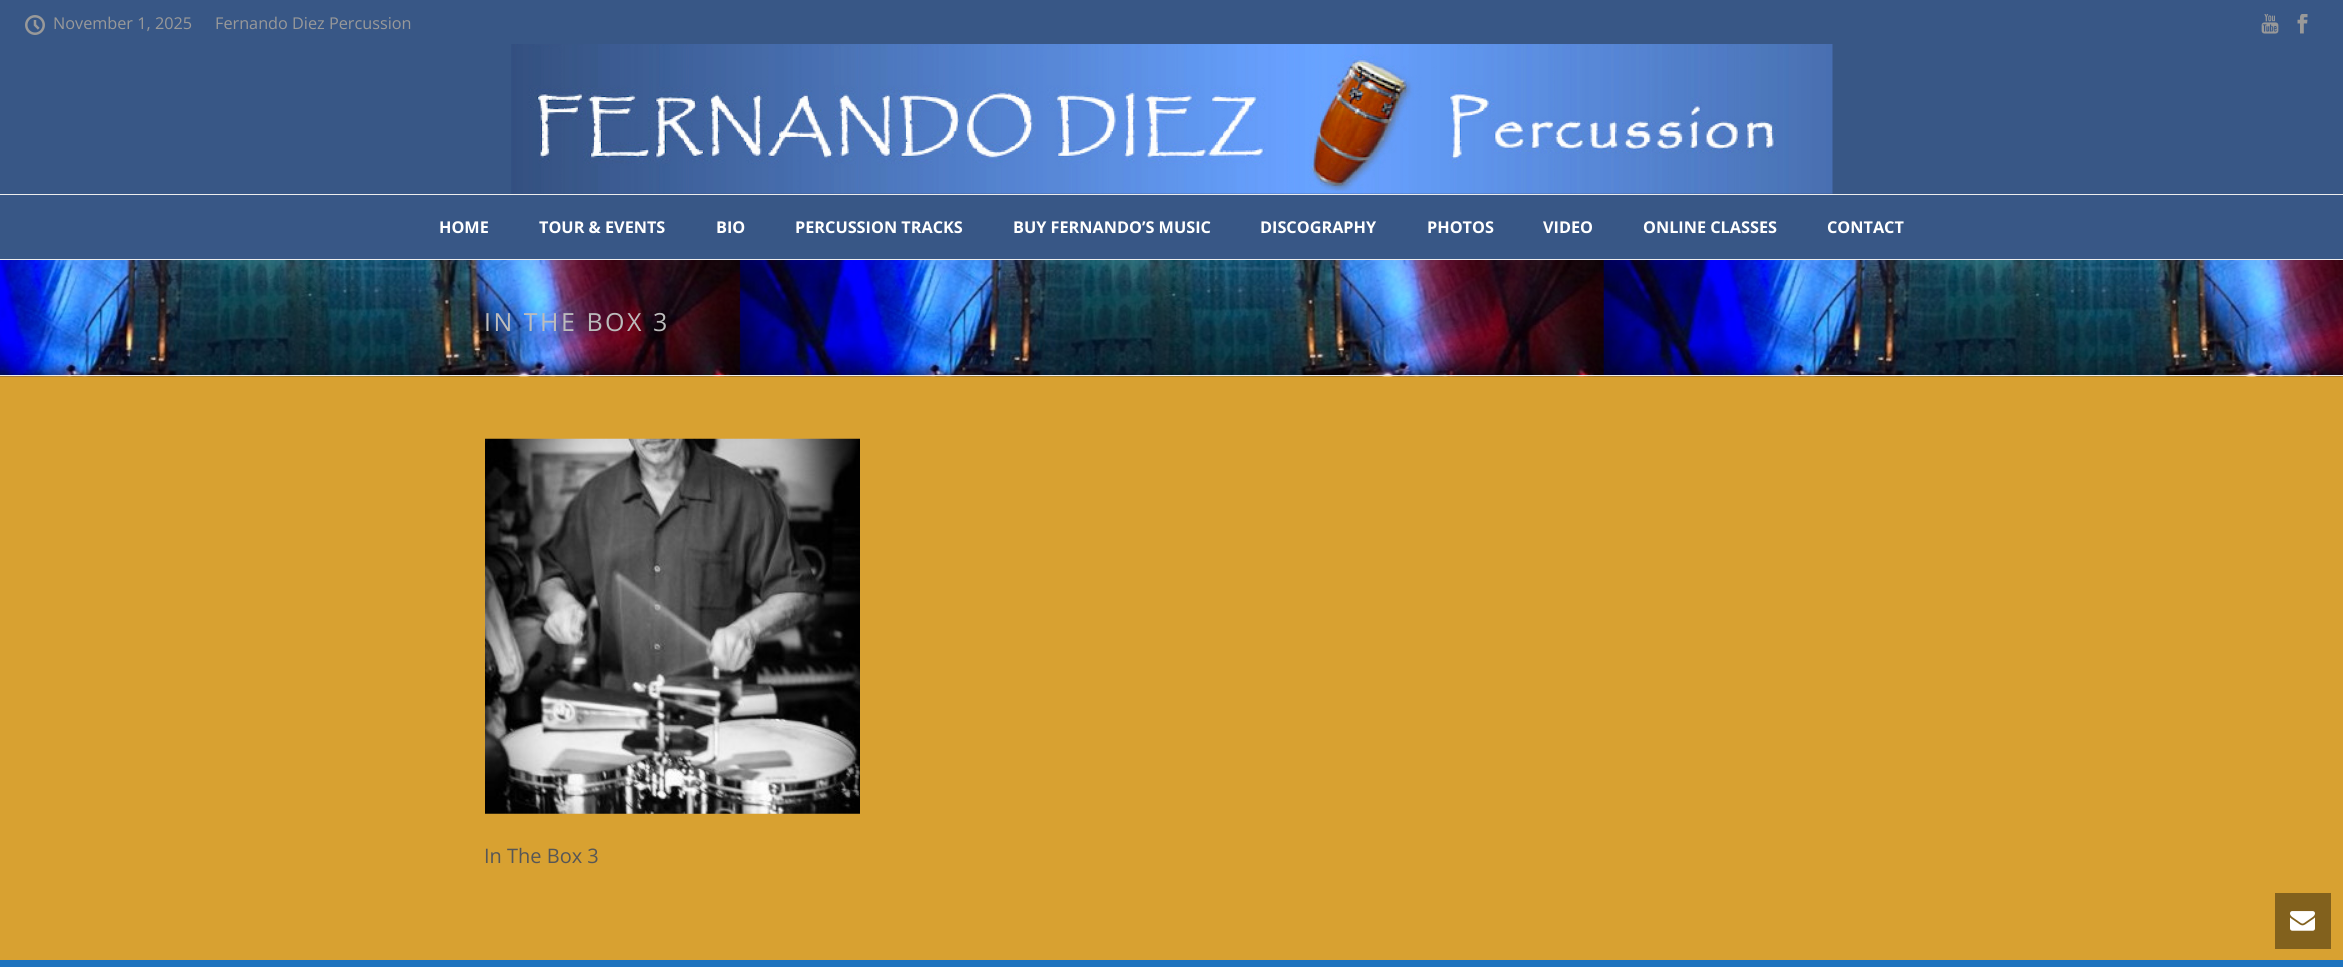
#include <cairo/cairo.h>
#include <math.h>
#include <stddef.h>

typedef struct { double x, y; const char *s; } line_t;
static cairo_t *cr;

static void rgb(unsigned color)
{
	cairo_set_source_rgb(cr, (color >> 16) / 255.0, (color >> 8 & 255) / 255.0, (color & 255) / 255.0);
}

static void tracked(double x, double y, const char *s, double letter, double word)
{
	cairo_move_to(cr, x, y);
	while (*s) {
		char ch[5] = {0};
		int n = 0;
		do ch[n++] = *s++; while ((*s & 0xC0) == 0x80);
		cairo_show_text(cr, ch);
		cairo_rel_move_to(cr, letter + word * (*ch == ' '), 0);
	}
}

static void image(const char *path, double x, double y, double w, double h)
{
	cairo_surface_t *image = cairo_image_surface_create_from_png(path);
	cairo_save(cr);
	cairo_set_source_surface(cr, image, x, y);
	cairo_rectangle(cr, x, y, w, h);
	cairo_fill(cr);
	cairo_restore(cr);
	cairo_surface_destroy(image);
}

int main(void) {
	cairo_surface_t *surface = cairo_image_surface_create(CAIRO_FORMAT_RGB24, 2343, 967);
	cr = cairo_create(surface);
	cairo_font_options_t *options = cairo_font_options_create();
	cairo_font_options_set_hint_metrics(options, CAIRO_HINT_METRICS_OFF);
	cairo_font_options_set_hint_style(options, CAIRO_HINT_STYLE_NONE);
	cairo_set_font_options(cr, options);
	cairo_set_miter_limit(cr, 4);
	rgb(0x1e73be);
	cairo_paint(cr);
	rgb(0xd8a131);
	cairo_rectangle(cr, 0, 376, 2343, 584);
	cairo_fill(cr);
	image("img/1.png", 0, 260, 2343, 117);
	rgb(0xededed);
	cairo_rectangle(cr, 0, 375, 2343, 1);
	cairo_fill(cr);
	rgb(0x385786);
	cairo_rectangle(cr, 0, 0, 2343, 259);
	cairo_fill(cr);
	image("img/2.png", 25, 15, 20, 20);
	image("img/3.png", 2261, 14, 18, 20);
	image("img/4.png", 2297, 14, 11, 20);
	rgb(0xededed);
	cairo_rectangle(cr, 0, 259, 2343, 1);
	cairo_fill(cr);
	image("img/5.png", 511, 44, 1322, 150);
	cairo_rectangle(cr, 0, 194, 2343, 1);
	cairo_fill(cr);
	image("img/6.png", 485, 438, 375, 376);
	rgb(0x82611d);
	cairo_rectangle(cr, 2275, 893, 56, 56);
	cairo_fill(cr);
	image("img/7.png", 2290, 911, 25, 20);
	cairo_select_font_face(cr, "Open Sans", CAIRO_FONT_SLANT_NORMAL, CAIRO_FONT_WEIGHT_NORMAL);
	cairo_set_font_size(cr, 16.25);
	rgb(0x999999);
	cairo_move_to(cr, 53, 29);
	cairo_show_text(cr, "November 1, 2025");
	cairo_move_to(cr, 215, 29);
	cairo_show_text(cr, "Fernando Diez Percussion");
	cairo_select_font_face(cr, "Open Sans", CAIRO_FONT_SLANT_NORMAL, CAIRO_FONT_WEIGHT_BOLD);
	rgb(0xffffff);
	{
		static const line_t items[] = {
			{439, 233, "HOME"},
			{539, 233, "TOUR & EVENTS"},
			{716, 233, "BIO"},
			{795, 233, "PERCUSSION TRACKS"},
			{1013, 233, "BUY FERNANDO’S MUSIC"},
			{1260, 233, "DISCOGRAPHY"},
			{1427, 233, "PHOTOS"},
			{1543, 233, "VIDEO"},
			{1643, 233, "ONLINE CLASSES"},
			{1827, 233, "CONTACT"},
		};
		for (size_t i = 0; i < sizeof items / sizeof *items; i++) {
			cairo_move_to(cr, items[i].x, items[i].y);
			cairo_show_text(cr, items[i].s);
		}
	}
	cairo_select_font_face(cr, "Open Sans", CAIRO_FONT_SLANT_NORMAL, CAIRO_FONT_WEIGHT_NORMAL);
	cairo_set_font_size(cr, 25);
	rgb(0xbcbcbc);
	tracked(484, 331, "IN THE BOX 3", 2.5, 0);
	cairo_set_font_size(cr, 20);
	rgb(0x565656);
	cairo_move_to(cr, 484, 863);
	cairo_show_text(cr, "In The Box 3");
	cairo_surface_write_to_png(surface, "page.png");
	cairo_font_options_destroy(options);
	cairo_destroy(cr);
	cairo_surface_destroy(surface);
	return 0;
}
